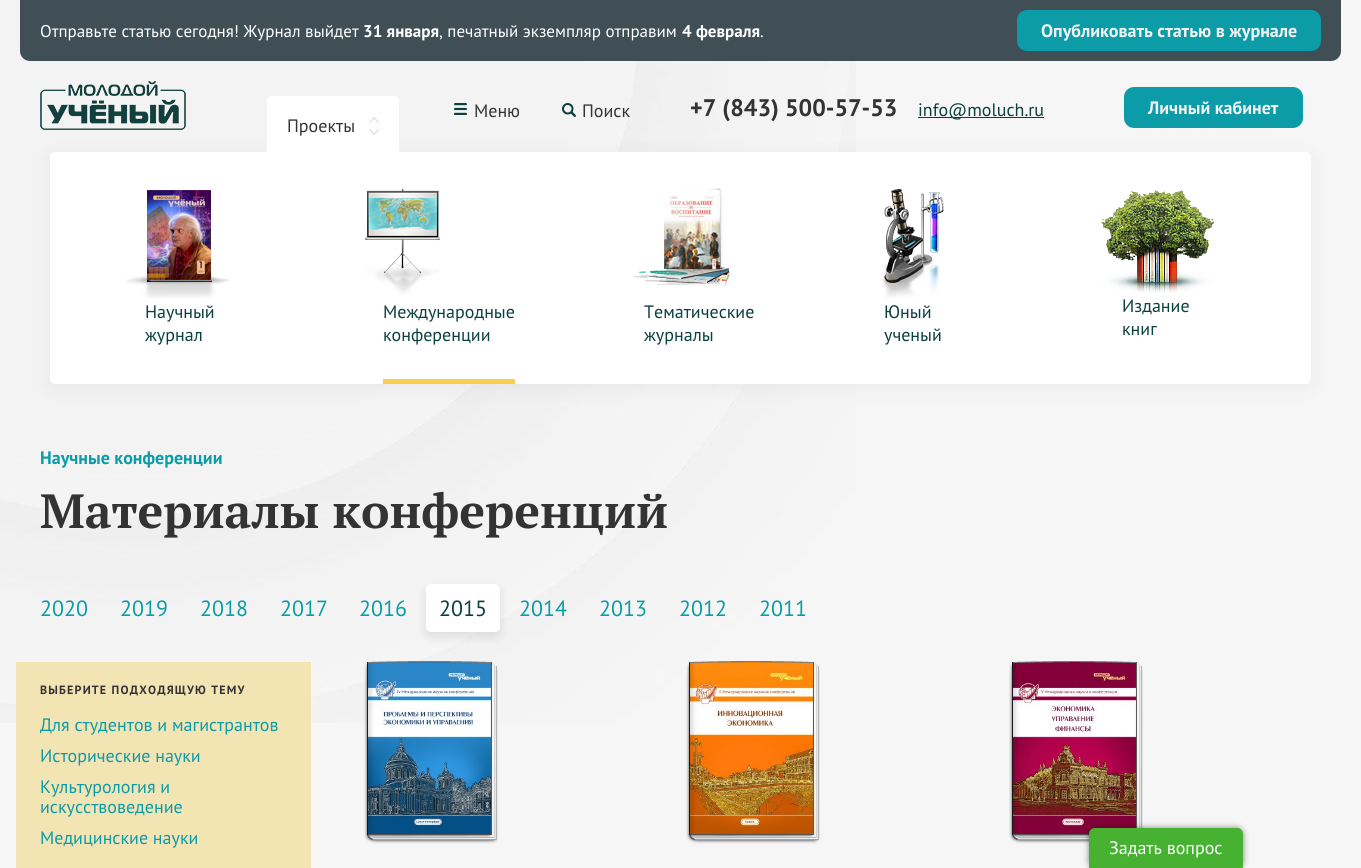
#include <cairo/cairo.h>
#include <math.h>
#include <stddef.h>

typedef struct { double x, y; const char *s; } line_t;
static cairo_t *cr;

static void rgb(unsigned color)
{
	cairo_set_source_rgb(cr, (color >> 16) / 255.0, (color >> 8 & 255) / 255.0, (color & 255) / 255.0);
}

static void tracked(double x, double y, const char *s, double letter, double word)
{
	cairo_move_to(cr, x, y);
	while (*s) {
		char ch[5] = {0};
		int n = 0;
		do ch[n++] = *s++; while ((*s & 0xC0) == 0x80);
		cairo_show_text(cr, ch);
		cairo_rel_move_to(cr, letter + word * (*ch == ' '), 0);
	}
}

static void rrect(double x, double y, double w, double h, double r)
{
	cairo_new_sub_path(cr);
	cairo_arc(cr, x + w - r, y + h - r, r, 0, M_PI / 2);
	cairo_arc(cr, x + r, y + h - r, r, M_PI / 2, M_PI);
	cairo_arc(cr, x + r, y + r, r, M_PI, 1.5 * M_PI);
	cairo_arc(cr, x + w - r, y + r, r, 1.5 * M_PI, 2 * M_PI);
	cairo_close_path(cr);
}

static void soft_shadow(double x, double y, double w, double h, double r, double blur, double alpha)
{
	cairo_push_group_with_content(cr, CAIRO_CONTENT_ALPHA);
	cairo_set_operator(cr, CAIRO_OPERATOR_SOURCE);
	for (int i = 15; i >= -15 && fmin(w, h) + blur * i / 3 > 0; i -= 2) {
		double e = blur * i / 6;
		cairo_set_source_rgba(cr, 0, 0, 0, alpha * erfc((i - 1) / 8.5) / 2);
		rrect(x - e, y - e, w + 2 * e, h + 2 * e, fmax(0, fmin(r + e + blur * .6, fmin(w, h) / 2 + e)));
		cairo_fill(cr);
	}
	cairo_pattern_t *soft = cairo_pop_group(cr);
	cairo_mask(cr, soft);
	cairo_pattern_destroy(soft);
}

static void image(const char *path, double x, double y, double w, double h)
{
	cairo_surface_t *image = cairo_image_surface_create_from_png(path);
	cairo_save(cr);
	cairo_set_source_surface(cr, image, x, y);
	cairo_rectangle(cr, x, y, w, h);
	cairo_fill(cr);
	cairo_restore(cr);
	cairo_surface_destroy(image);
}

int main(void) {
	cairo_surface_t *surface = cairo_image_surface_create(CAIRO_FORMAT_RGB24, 1361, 868);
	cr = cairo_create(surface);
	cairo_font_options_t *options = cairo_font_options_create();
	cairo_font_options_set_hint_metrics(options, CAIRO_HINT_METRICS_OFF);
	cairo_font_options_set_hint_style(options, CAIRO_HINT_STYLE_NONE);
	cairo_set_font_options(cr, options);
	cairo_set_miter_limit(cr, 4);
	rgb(0xf6f6f6);
	cairo_paint(cr);
	image("img/1.png", 0, 0, 856, 723);
	rgb(0x3f4f55);
	cairo_new_path(cr);
	cairo_move_to(cr, 20, 0);
	cairo_line_to(cr, 1341, 0);
	cairo_line_to(cr, 1341, 51);
	cairo_curve_to(cr, 1341, 56.5, 1336.5, 61, 1331, 61);
	cairo_line_to(cr, 30, 61);
	cairo_curve_to(cr, 24.5, 61, 20, 56.5, 20, 51);
	cairo_close_path(cr);
	cairo_fill(cr);
	rgb(0x0c9ca7);
	rrect(1017, 10, 304, 41, 10);
	cairo_fill(cr);
	rgb(0x000000);
	soft_shadow(50, 156, 1261, 232, 5, 10, 0.05);
	image("img/2.png", 40, 81, 146, 49);
	image("img/3.png", 454, 103, 13, 12);
	image("img/4.png", 562, 103, 14, 14);
	rgb(0x0a403e);
	cairo_rectangle(cr, 918, 117, 126, 1);
	cairo_fill(cr);
	rgb(0x0c9ca7);
	rrect(1124, 87, 179, 41, 10);
	cairo_fill(cr);
	rgb(0xffffff);
	cairo_new_path(cr);
	cairo_move_to(cr, 272, 96);
	cairo_line_to(cr, 394, 96);
	cairo_curve_to(cr, 397, 96, 399, 98, 399, 101);
	cairo_line_to(cr, 399, 152);
	cairo_line_to(cr, 267, 152);
	cairo_line_to(cr, 267, 101);
	cairo_curve_to(cr, 267, 98, 269, 96, 272, 96);
	cairo_close_path(cr);
	cairo_fill(cr);
	image("img/5.png", 369, 117, 10, 18);
	rrect(50, 152, 1261, 232, 5);
	cairo_fill(cr);
	image("img/6.png", 126, 190, 104, 109);
	rgb(0xfacf50);
	cairo_rectangle(cr, 383, 379, 132, 5);
	cairo_fill(cr);
	image("img/7.png", 365, 188, 75, 107);
	image("img/8.png", 633, 188, 101, 98);
	image("img/9.png", 883, 189, 61, 109);
	image("img/10.png", 1101, 190, 113, 103);
	rgb(0x000000);
	soft_shadow(426, 589, 74, 48, 5, 5, 0.1);
	rgb(0xffffff);
	rrect(426, 584, 74, 48, 5);
	cairo_fill(cr);
	rgb(0xf3e4b4);
	cairo_rectangle(cr, 16, 662, 295, 206);
	cairo_fill(cr);
	image("img/12.png", 367, 662, 124, 172);
	image("img/11.png", 364, 661, 134, 183);
	image("img/14.png", 689, 662, 124, 172);
	image("img/13.png", 686, 661, 134, 183);
	image("img/16.png", 1012, 662, 124, 172);
	image("img/15.png", 1009, 661, 134, 183);
	rgb(0x041400);
	soft_shadow(1090, 829, 152, 38, 5, 3.5, 0.65);
	rgb(0x47b132);
	cairo_new_path(cr);
	cairo_move_to(cr, 1095, 828);
	cairo_line_to(cr, 1237, 828);
	cairo_curve_to(cr, 1240.5, 828, 1243, 830.5, 1243, 834);
	cairo_line_to(cr, 1243, 868);
	cairo_line_to(cr, 1089, 868);
	cairo_line_to(cr, 1089, 834);
	cairo_curve_to(cr, 1089, 830.5, 1091.5, 828, 1095, 828);
	cairo_close_path(cr);
	cairo_fill(cr);
	cairo_select_font_face(cr, "PT Sans", CAIRO_FONT_SLANT_NORMAL, CAIRO_FONT_WEIGHT_NORMAL);
	cairo_set_font_size(cr, 17);
	rgb(0xffffff);
	cairo_move_to(cr, 40, 37);
	cairo_show_text(cr, "Отправьте статью сегодня! Журнал выйдет");
	cairo_select_font_face(cr, "PT Sans", CAIRO_FONT_SLANT_NORMAL, CAIRO_FONT_WEIGHT_BOLD);
	cairo_move_to(cr, 363, 37);
	cairo_show_text(cr, "31 января");
	cairo_select_font_face(cr, "PT Sans", CAIRO_FONT_SLANT_NORMAL, CAIRO_FONT_WEIGHT_NORMAL);
	cairo_move_to(cr, 439, 37);
	cairo_show_text(cr, ", печатный экземпляр отправим");
	cairo_select_font_face(cr, "PT Sans", CAIRO_FONT_SLANT_NORMAL, CAIRO_FONT_WEIGHT_BOLD);
	cairo_move_to(cr, 682, 37);
	cairo_show_text(cr, "4 февраля");
	cairo_select_font_face(cr, "PT Sans", CAIRO_FONT_SLANT_NORMAL, CAIRO_FONT_WEIGHT_NORMAL);
	cairo_move_to(cr, 760, 37);
	cairo_show_text(cr, ".");
	cairo_select_font_face(cr, "PT Sans", CAIRO_FONT_SLANT_NORMAL, CAIRO_FONT_WEIGHT_BOLD);
	cairo_set_font_size(cr, 18);
	rgb(0xf2f2f2);
	cairo_move_to(cr, 1041, 37);
	cairo_show_text(cr, "Опубликовать статью в журнале");
	cairo_select_font_face(cr, "PT Sans", CAIRO_FONT_SLANT_NORMAL, CAIRO_FONT_WEIGHT_NORMAL);
	rgb(0x333333);
	cairo_move_to(cr, 474, 117);
	cairo_show_text(cr, "Меню");
	cairo_move_to(cr, 582, 117);
	cairo_show_text(cr, "Поиск");
	cairo_select_font_face(cr, "PT Sans", CAIRO_FONT_SLANT_NORMAL, CAIRO_FONT_WEIGHT_BOLD);
	cairo_set_font_size(cr, 24);
	cairo_move_to(cr, 690, 116);
	cairo_show_text(cr, "+7 (843) 500-57-53");
	cairo_select_font_face(cr, "PT Sans", CAIRO_FONT_SLANT_NORMAL, CAIRO_FONT_WEIGHT_NORMAL);
	cairo_set_font_size(cr, 18);
	rgb(0x0a403e);
	cairo_move_to(cr, 918, 116);
	cairo_show_text(cr, "info@moluch.ru");
	cairo_select_font_face(cr, "PT Sans", CAIRO_FONT_SLANT_NORMAL, CAIRO_FONT_WEIGHT_BOLD);
	rgb(0xf2f2f2);
	cairo_move_to(cr, 1148, 114);
	cairo_show_text(cr, "Личный кабинет");
	cairo_select_font_face(cr, "PT Sans", CAIRO_FONT_SLANT_NORMAL, CAIRO_FONT_WEIGHT_NORMAL);
	rgb(0x333333);
	cairo_move_to(cr, 287, 132);
	cairo_show_text(cr, "Проекты");
	rgb(0x0a403e);
	{
		static const line_t items[] = {
			{145, 318, "Научный"},
			{145, 341, "журнал"},
			{383, 318, "Международные"},
			{383, 341, "конференции"},
			{644, 318, "Тематические"},
			{644, 341, "журналы"},
			{884, 318, "Юный"},
			{884, 341, "ученый"},
			{1122, 312, "Издание"},
			{1122, 335, "книг"},
		};
		for (size_t i = 0; i < sizeof items / sizeof *items; i++) {
			cairo_move_to(cr, items[i].x, items[i].y);
			cairo_show_text(cr, items[i].s);
		}
	}
	cairo_select_font_face(cr, "PT Sans", CAIRO_FONT_SLANT_NORMAL, CAIRO_FONT_WEIGHT_BOLD);
	rgb(0x0c9ca7);
	cairo_move_to(cr, 40, 464);
	cairo_show_text(cr, "Научные конференции");
	cairo_select_font_face(cr, "PT Serif", CAIRO_FONT_SLANT_NORMAL, CAIRO_FONT_WEIGHT_BOLD);
	cairo_set_font_size(cr, 48);
	rgb(0x333333);
	cairo_move_to(cr, 40, 528);
	cairo_show_text(cr, "Материалы конференций");
	cairo_select_font_face(cr, "PT Sans", CAIRO_FONT_SLANT_NORMAL, CAIRO_FONT_WEIGHT_NORMAL);
	cairo_set_font_size(cr, 22);
	rgb(0x0c9ca7);
	{
		static const line_t items[] = {
			{40, 616, "2020"},
			{120, 616, "2019"},
			{200, 616, "2018"},
			{280, 616, "2017"},
			{359, 616, "2016"},
		};
		for (size_t i = 0; i < sizeof items / sizeof *items; i++) {
			cairo_move_to(cr, items[i].x, items[i].y);
			cairo_show_text(cr, items[i].s);
		}
	}
	rgb(0x0a403e);
	cairo_move_to(cr, 439, 616);
	cairo_show_text(cr, "2015");
	rgb(0x0c9ca7);
	{
		static const line_t items[] = {
			{519, 616, "2014"},
			{599, 616, "2013"},
			{679, 616, "2012"},
			{759, 616, "2011"},
		};
		for (size_t i = 0; i < sizeof items / sizeof *items; i++) {
			cairo_move_to(cr, items[i].x, items[i].y);
			cairo_show_text(cr, items[i].s);
		}
	}
	cairo_select_font_face(cr, "PT Sans", CAIRO_FONT_SLANT_NORMAL, CAIRO_FONT_WEIGHT_BOLD);
	cairo_set_font_size(cr, 12);
	rgb(0x333333);
	tracked(40, 694, "ВЫБЕРИТЕ ПОДХОДЯЩУЮ ТЕМУ", 1.2, 0);
	cairo_select_font_face(cr, "PT Sans", CAIRO_FONT_SLANT_NORMAL, CAIRO_FONT_WEIGHT_NORMAL);
	cairo_set_font_size(cr, 18);
	rgb(0x0c9ca7);
	{
		static const line_t items[] = {
			{40, 731, "Для студентов и магистрантов"},
			{40, 762, "Исторические науки"},
			{40, 793, "Культурология и"},
			{40, 813, "искусствоведение"},
			{40, 844, "Медицинские науки"},
		};
		for (size_t i = 0; i < sizeof items / sizeof *items; i++) {
			cairo_move_to(cr, items[i].x, items[i].y);
			cairo_show_text(cr, items[i].s);
		}
	}
	rgb(0xffffff);
	cairo_move_to(cr, 1109, 854);
	cairo_show_text(cr, "Задать вопрос");
	cairo_surface_write_to_png(surface, "page.png");
	cairo_font_options_destroy(options);
	cairo_destroy(cr);
	cairo_surface_destroy(surface);
	return 0;
}
